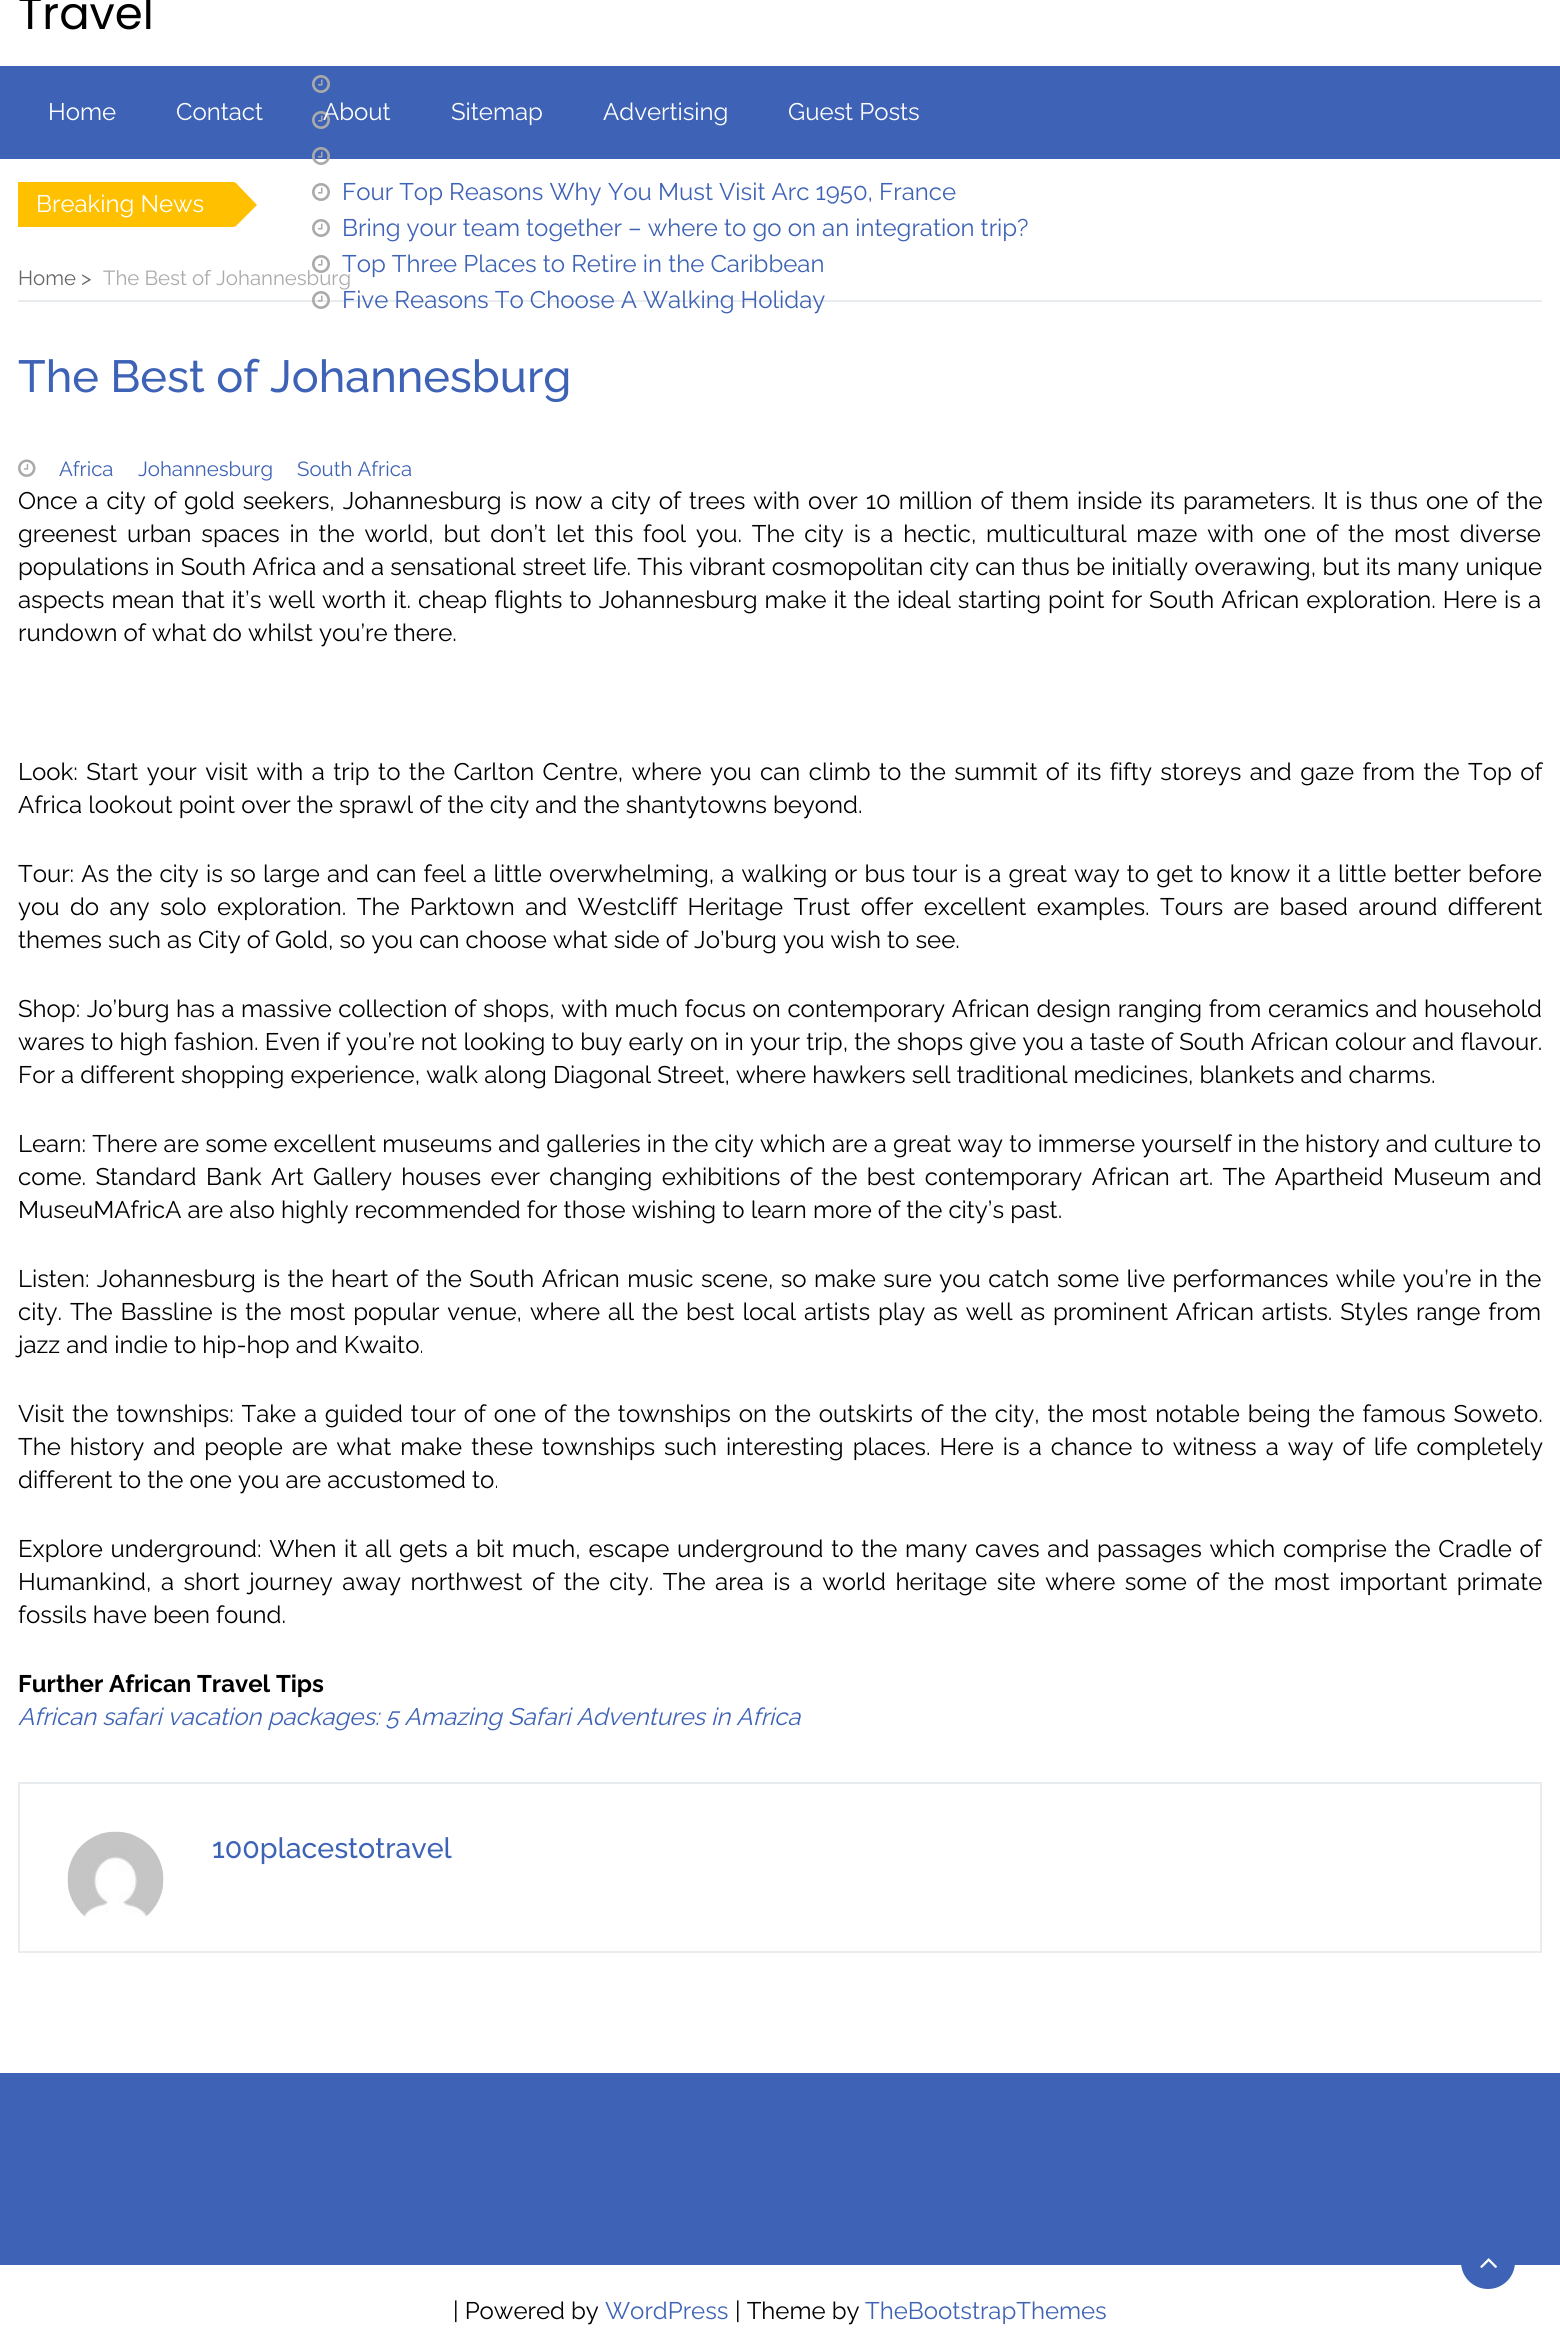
#include <cairo/cairo.h>
#include <math.h>
#include <stddef.h>

typedef struct { double x, y; const char *s; } line_t;
static cairo_t *cr;

static void rgb(unsigned color)
{
	cairo_set_source_rgb(cr, (color >> 16) / 255.0, (color >> 8 & 255) / 255.0, (color & 255) / 255.0);
}

static void tracked(double x, double y, const char *s, double letter, double word)
{
	cairo_move_to(cr, x, y);
	while (*s) {
		char ch[5] = {0};
		int n = 0;
		do ch[n++] = *s++; while ((*s & 0xC0) == 0x80);
		cairo_show_text(cr, ch);
		cairo_rel_move_to(cr, letter + word * (*ch == ' '), 0);
	}
}

static void image(const char *path, double x, double y, double w, double h)
{
	cairo_surface_t *image = cairo_image_surface_create_from_png(path);
	cairo_save(cr);
	cairo_set_source_surface(cr, image, x, y);
	cairo_rectangle(cr, x, y, w, h);
	cairo_fill(cr);
	cairo_restore(cr);
	cairo_surface_destroy(image);
}

int main(void) {
	cairo_surface_t *surface = cairo_image_surface_create(CAIRO_FORMAT_RGB24, 1560, 2333);
	cr = cairo_create(surface);
	cairo_font_options_t *options = cairo_font_options_create();
	cairo_font_options_set_hint_metrics(options, CAIRO_HINT_METRICS_OFF);
	cairo_font_options_set_hint_style(options, CAIRO_HINT_STYLE_NONE);
	cairo_set_font_options(cr, options);
	cairo_set_miter_limit(cr, 4);
	rgb(0xffffff);
	cairo_paint(cr);
	rgb(0x3e63b6);
	cairo_rectangle(cr, 0, 66, 1560, 93);
	cairo_fill(cr);
	rgb(0xffc000);
	cairo_rectangle(cr, 18, 182, 216, 45);
	cairo_fill(cr);
	cairo_new_path(cr);
	cairo_move_to(cr, 213, 205);
	cairo_line_to(cr, 235, 182);
	cairo_line_to(cr, 257, 205);
	cairo_line_to(cr, 235, 227);
	cairo_close_path(cr);
	cairo_fill(cr);
	image("img/1.png", 312, 75, 18, 18);
	image("img/1.png", 312, 111, 18, 18);
	image("img/2.png", 312, 147, 18, 18);
	image("img/3.png", 312, 183, 18, 18);
	image("img/3.png", 312, 219, 18, 18);
	image("img/3.png", 312, 255, 18, 18);
	rgb(0xe9ecef);
	cairo_rectangle(cr, 18, 300, 1524, 2);
	cairo_fill(cr);
	image("img/4.png", 312, 291, 18, 18);
	image("img/5.png", 18, 459, 18, 18);
	cairo_rectangle(cr, 19, 1783, 1522, 169);
	cairo_stroke(cr);
	image("img/6.png", 67, 1831, 97, 86);
	rgb(0x3e63b6);
	cairo_rectangle(cr, 0, 2073, 1560, 192);
	cairo_fill(cr);
	cairo_arc(cr, 1488, 2262, 27, 0, 2 * M_PI);
	cairo_fill(cr);
	image("img/7.png", 1480, 2258, 17, 10);
	cairo_select_font_face(cr, "Poppins", CAIRO_FONT_SLANT_NORMAL, CAIRO_FONT_WEIGHT_NORMAL);
	cairo_set_font_size(cr, 45);
	rgb(0x000000);
	cairo_move_to(cr, 18, 29);
	cairo_show_text(cr, "Travel");
	cairo_select_font_face(cr, "Raleway", CAIRO_FONT_SLANT_NORMAL, CAIRO_FONT_WEIGHT_NORMAL);
	cairo_set_font_size(cr, 24);
	rgb(0xffffff);
	{
		static const line_t items[] = {
			{48, 120, "Home"},
			{176, 120, "Contact"},
			{323, 120, "About"},
			{451, 120, "Sitemap"},
			{603, 120, "Advertising"},
			{788, 120, "Guest Posts"},
			{36, 212, "Breaking News"},
		};
		for (size_t i = 0; i < sizeof items / sizeof *items; i++) {
			cairo_move_to(cr, items[i].x, items[i].y);
			cairo_show_text(cr, items[i].s);
		}
	}
	rgb(0x3e63b6);
	{
		static const line_t items[] = {
			{342, 200, "Four Top Reasons Why You Must Visit Arc 1950, France"},
			{342, 236, "Bring your team together – where to go on an integration trip?"},
			{342, 308, "Five Reasons To Choose A Walking Holiday"},
		};
		for (size_t i = 0; i < sizeof items / sizeof *items; i++) {
			cairo_move_to(cr, items[i].x, items[i].y);
			cairo_show_text(cr, items[i].s);
		}
	}
	cairo_set_font_size(cr, 20.4);
	rgb(0x666666);
	cairo_move_to(cr, 18, 285);
	cairo_show_text(cr, "Home");
	cairo_move_to(cr, 81, 285);
	cairo_show_text(cr, ">");
	rgb(0xaaaaaa);
	cairo_move_to(cr, 103, 285);
	cairo_show_text(cr, "The Best of Johannesburg");
	cairo_set_font_size(cr, 24);
	rgb(0x3e63b6);
	cairo_move_to(cr, 342, 272);
	cairo_show_text(cr, "Top Three Places to Retire in the Caribbean");
	cairo_select_font_face(cr, "Raleway Medium", CAIRO_FONT_SLANT_NORMAL, CAIRO_FONT_WEIGHT_NORMAL);
	cairo_set_font_size(cr, 45);
	cairo_move_to(cr, 18, 392);
	cairo_show_text(cr, "The Best of Johannesburg");
	cairo_select_font_face(cr, "Raleway", CAIRO_FONT_SLANT_NORMAL, CAIRO_FONT_WEIGHT_NORMAL);
	cairo_set_font_size(cr, 20.4);
	{
		static const line_t items[] = {
			{59, 476, "Africa"},
			{138, 476, "Johannesburg"},
			{297, 476, "South Africa"},
		};
		for (size_t i = 0; i < sizeof items / sizeof *items; i++) {
			cairo_move_to(cr, items[i].x, items[i].y);
			cairo_show_text(cr, items[i].s);
		}
	}
	cairo_set_font_size(cr, 24);
	rgb(0x000000);
	tracked(18, 509, "Once a city of gold seekers, Johannesburg is now a city of trees with over 10 million of them inside its parameters. It is thus one of the", 0, 1.9);
	tracked(18, 542, "greenest urban spaces in the world, but don’t let this fool you. The city is a hectic, multicultural maze with one of the most diverse", 0, 3.7);
	tracked(18, 575, "populations in South Africa and a sensational street life. This vibrant cosmopolitan city can thus be initially overawing, but its many unique", 0, 0.2);
	tracked(18, 608, "aspects mean that it’s well worth it. cheap flights to Johannesburg make it the ideal starting point for South African exploration. Here is a", 0, 0.9);
	cairo_move_to(cr, 18, 641);
	cairo_show_text(cr, "rundown of what do whilst you’re there.");
	tracked(18, 780, "Look: Start your visit with a trip to the Carlton Centre, where you can climb to the summit of its fifty storeys and gaze from the Top of", 0, 2.3);
	cairo_move_to(cr, 18, 813);
	cairo_show_text(cr, "Africa lookout point over the sprawl of the city and the shantytowns beyond.");
	tracked(18, 882, "Tour: As the city is so large and can feel a little overwhelming, a walking or bus tour is a great way to get to know it a little better before", 0, 1);
	tracked(18, 915, "you do any solo exploration. The Parktown and Westcliff Heritage Trust offer excellent examples. Tours are based around different", 0, 4.25);
	cairo_move_to(cr, 18, 948);
	cairo_show_text(cr, "themes such as City of Gold, so you can choose what side of Jo’burg you wish to see.");
	tracked(18, 1017, "Shop: Jo’burg has a massive collection of shops, with much focus on contemporary African design ranging from ceramics and household", 0, 0.5);
	tracked(18, 1050, "wares to high fashion. Even if you’re not looking to buy early on in your trip, the shops give you a taste of South African colour and flavour.", 0, 0.15);
	cairo_move_to(cr, 18, 1083);
	cairo_show_text(cr, "For a different shopping experience, walk along Diagonal Street, where hawkers sell traditional medicines, blankets and charms.");
	cairo_move_to(cr, 18, 1152);
	cairo_show_text(cr, "Learn: There are some excellent museums and galleries in the city which are a great way to immerse yourself in the history and culture to");
	tracked(18, 1185, "come. Standard Bank Art Gallery houses ever changing exhibitions of the best contemporary African art. The Apartheid Museum and", 0, 3.25);
	cairo_move_to(cr, 18, 1218);
	cairo_show_text(cr, "MuseuMAfricA are also highly recommended for those wishing to learn more of the city’s past.");
	tracked(18, 1287, "Listen: Johannesburg is the heart of the South African music scene, so make sure you catch some live performances while you’re in the", 0, 1.3);
	tracked(18, 1320, "city. The Bassline is the most popular venue, where all the best local artists play as well as prominent African artists. Styles range from", 0, 1.8);
	cairo_move_to(cr, 18, 1353);
	cairo_show_text(cr, "jazz and indie to hip-hop and Kwaito.");
	tracked(18, 1422, "Visit the townships: Take a guided tour of one of the townships on the outskirts of the city, the most notable being the famous Soweto.", 0, 1.7);
	tracked(18, 1455, "The history and people are what make these townships such interesting places. Here is a chance to witness a way of life completely", 0, 2.9);
	cairo_move_to(cr, 18, 1488);
	cairo_show_text(cr, "different to the one you are accustomed to.");
	tracked(18, 1557, "Explore underground: When it all gets a bit much, escape underground to the many caves and passages which comprise the Cradle of", 0, 1.6);
	tracked(18, 1590, "Humankind, a short journey away northwest of the city. The area is a world heritage site where some of the most important primate", 0, 3.4);
	cairo_move_to(cr, 18, 1623);
	cairo_show_text(cr, "fossils have been found.");
	cairo_select_font_face(cr, "Raleway", CAIRO_FONT_SLANT_NORMAL, CAIRO_FONT_WEIGHT_BOLD);
	cairo_move_to(cr, 18, 1692);
	cairo_show_text(cr, "Further African Travel Tips");
	cairo_select_font_face(cr, "Raleway", CAIRO_FONT_SLANT_ITALIC, CAIRO_FONT_WEIGHT_NORMAL);
	rgb(0x3e63b6);
	cairo_move_to(cr, 18, 1725);
	cairo_show_text(cr, "African safari vacation packages: 5 Amazing Safari Adventures in Africa");
	cairo_select_font_face(cr, "Raleway Medium", CAIRO_FONT_SLANT_NORMAL, CAIRO_FONT_WEIGHT_NORMAL);
	cairo_set_font_size(cr, 28.5);
	cairo_move_to(cr, 212, 1858);
	cairo_show_text(cr, "100placestotravel");
	cairo_select_font_face(cr, "Raleway", CAIRO_FONT_SLANT_NORMAL, CAIRO_FONT_WEIGHT_NORMAL);
	cairo_set_font_size(cr, 24);
	rgb(0x000000);
	cairo_move_to(cr, 453, 2319);
	cairo_show_text(cr, "| Powered by");
	rgb(0x3e63b6);
	cairo_move_to(cr, 605, 2319);
	cairo_show_text(cr, "WordPress");
	rgb(0x000000);
	cairo_move_to(cr, 735, 2319);
	cairo_show_text(cr, "| Theme by");
	rgb(0x3e63b6);
	cairo_move_to(cr, 865, 2319);
	cairo_show_text(cr, "TheBootstrapThemes");
	cairo_surface_write_to_png(surface, "page.png");
	cairo_font_options_destroy(options);
	cairo_destroy(cr);
	cairo_surface_destroy(surface);
	return 0;
}
